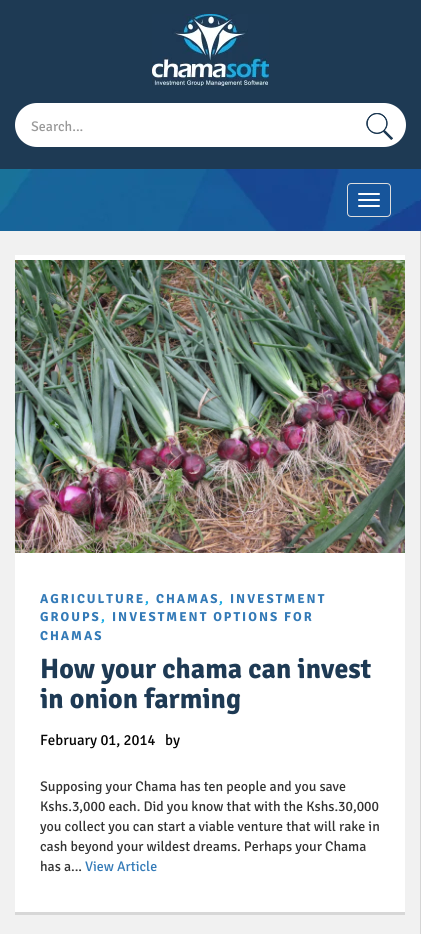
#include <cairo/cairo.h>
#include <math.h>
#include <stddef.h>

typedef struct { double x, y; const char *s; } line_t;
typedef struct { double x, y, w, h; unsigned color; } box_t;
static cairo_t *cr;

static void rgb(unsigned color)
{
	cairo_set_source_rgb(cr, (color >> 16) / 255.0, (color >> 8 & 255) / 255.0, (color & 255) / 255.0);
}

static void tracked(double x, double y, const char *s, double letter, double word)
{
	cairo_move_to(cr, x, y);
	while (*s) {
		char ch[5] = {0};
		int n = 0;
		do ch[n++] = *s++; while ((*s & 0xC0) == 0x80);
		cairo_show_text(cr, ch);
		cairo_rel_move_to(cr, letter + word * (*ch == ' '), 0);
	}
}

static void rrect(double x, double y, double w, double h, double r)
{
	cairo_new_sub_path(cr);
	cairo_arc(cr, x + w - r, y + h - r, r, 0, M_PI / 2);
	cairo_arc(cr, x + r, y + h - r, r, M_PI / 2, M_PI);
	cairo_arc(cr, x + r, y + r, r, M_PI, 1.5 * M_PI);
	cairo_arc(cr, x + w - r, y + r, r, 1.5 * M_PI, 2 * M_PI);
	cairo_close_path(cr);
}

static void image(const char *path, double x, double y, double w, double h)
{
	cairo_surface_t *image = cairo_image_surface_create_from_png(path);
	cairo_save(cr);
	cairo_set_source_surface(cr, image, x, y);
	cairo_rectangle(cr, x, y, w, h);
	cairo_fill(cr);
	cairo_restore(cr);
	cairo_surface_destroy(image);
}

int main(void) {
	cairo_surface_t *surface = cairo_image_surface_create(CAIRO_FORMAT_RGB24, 421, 934);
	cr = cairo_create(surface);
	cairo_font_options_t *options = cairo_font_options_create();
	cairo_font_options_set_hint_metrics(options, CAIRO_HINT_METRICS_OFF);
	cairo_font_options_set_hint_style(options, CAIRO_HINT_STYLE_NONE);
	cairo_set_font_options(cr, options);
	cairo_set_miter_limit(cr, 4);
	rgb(0xf1f1f1);
	cairo_paint(cr);
	rgb(0x1e3a54);
	cairo_rectangle(cr, 0, 0, 421, 169);
	cairo_fill(cr);
	image("img/1.png", 152, 14, 117, 72);
	rgb(0xffffff);
	rrect(15, 103, 391, 44, 22);
	cairo_fill(cr);
	image("img/2.png", 366, 113, 27, 27);
	image("img/3.png", 0, 169, 421, 62);
	rrect(347.5, 183.5, 43, 33, 3.5);
	rgb(0xdddddd);
	cairo_set_line_width(cr, 1);
	cairo_stroke(cr);
	rgb(0xffffff);
	rrect(358, 193, 22, 2, 1);
	cairo_fill(cr);
	rrect(358, 199, 22, 2, 1);
	cairo_fill(cr);
	rrect(358, 205, 22, 2, 1);
	cairo_fill(cr);
	{
		static const box_t items[] = {
			{420, 231, 1, 703, 0xd4d4d4},
			{15, 255, 390, 657, 0xffffff},
			{15, 912, 390, 3, 0xd7d7d7},
		};
		for (size_t i = 0; i < sizeof items / sizeof *items; i++) {
			rgb(items[i].color);
			cairo_rectangle(cr, items[i].x, items[i].y, items[i].w, items[i].h);
			cairo_fill(cr);
		}
	}
	image("img/4.png", 15, 260, 390, 293);
	cairo_select_font_face(cr, "Signika", CAIRO_FONT_SLANT_NORMAL, CAIRO_FONT_WEIGHT_NORMAL);
	cairo_set_font_size(cr, 14);
	rgb(0x999999);
	cairo_move_to(cr, 31, 131);
	cairo_show_text(cr, "Search...");
	cairo_select_font_face(cr, "Signika", CAIRO_FONT_SLANT_NORMAL, CAIRO_FONT_WEIGHT_BOLD);
	cairo_set_font_size(cr, 13);
	rgb(0x337ab7);
	tracked(40, 603, "AGRICULTURE", 2, 0);
	rgb(0x16ace4);
	tracked(145, 603, ",", 2, 0);
	rgb(0x337ab7);
	tracked(156, 603, "CHAMAS", 2, 0);
	rgb(0x16ace4);
	tracked(219, 603, ",", 2, 0);
	rgb(0x337ab7);
	tracked(230, 603, "INVESTMENT", 2, 0);
	tracked(40, 621, "GROUPS", 2, 0);
	rgb(0x16ace4);
	tracked(101, 621, ",", 2, 0);
	rgb(0x337ab7);
	tracked(112, 621, "INVESTMENT OPTIONS FOR", 2, 0);
	tracked(40, 640, "CHAMAS", 2, 0);
	cairo_set_font_size(cr, 28);
	rgb(0x1e3a54);
	cairo_move_to(cr, 40, 678);
	cairo_show_text(cr, "How your chama can invest");
	cairo_move_to(cr, 40, 708);
	cairo_show_text(cr, "in onion farming");
	cairo_select_font_face(cr, "Signika", CAIRO_FONT_SLANT_NORMAL, CAIRO_FONT_WEIGHT_NORMAL);
	cairo_set_font_size(cr, 15);
	rgb(0x040404);
	cairo_move_to(cr, 40, 745);
	cairo_show_text(cr, "February 01, 2014");
	cairo_move_to(cr, 165, 745);
	cairo_show_text(cr, "by");
	cairo_set_font_size(cr, 14);
	rgb(0x333333);
	{
		static const line_t items[] = {
			{40, 791, "Supposing your Chama has ten people and you save"},
			{40, 811, "Kshs.3,000 each. Did you know that with the Kshs.30,000"},
			{40, 831, "you collect you can start a viable venture that will rake in"},
			{40, 851, "cash beyond your wildest dreams. Perhaps your Chama"},
			{40, 871, "has a..."},
		};
		for (size_t i = 0; i < sizeof items / sizeof *items; i++) {
			cairo_move_to(cr, items[i].x, items[i].y);
			cairo_show_text(cr, items[i].s);
		}
	}
	rgb(0x337ab7);
	cairo_move_to(cr, 85, 871);
	cairo_show_text(cr, "View Article");
	cairo_surface_write_to_png(surface, "page.png");
	cairo_font_options_destroy(options);
	cairo_destroy(cr);
	cairo_surface_destroy(surface);
	return 0;
}
